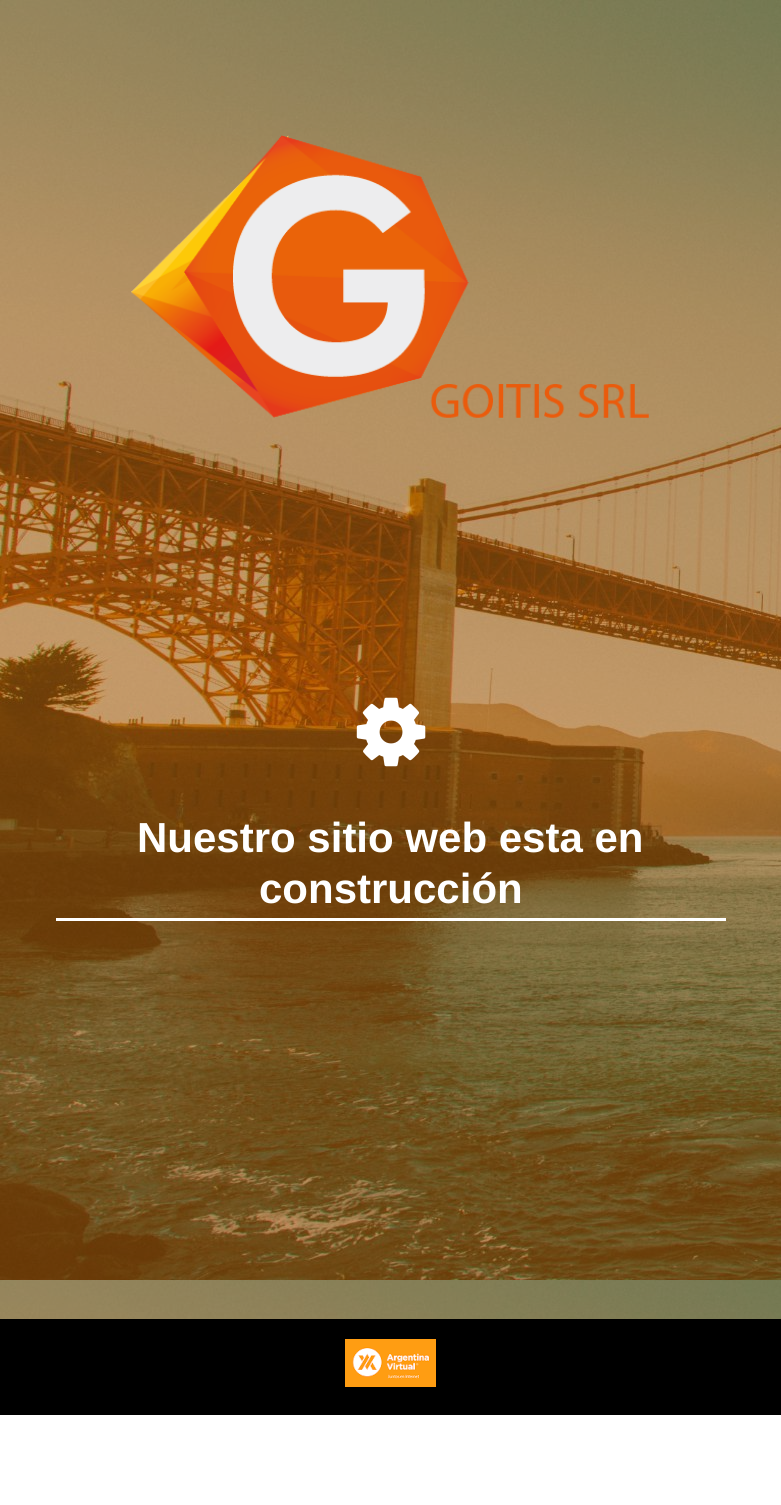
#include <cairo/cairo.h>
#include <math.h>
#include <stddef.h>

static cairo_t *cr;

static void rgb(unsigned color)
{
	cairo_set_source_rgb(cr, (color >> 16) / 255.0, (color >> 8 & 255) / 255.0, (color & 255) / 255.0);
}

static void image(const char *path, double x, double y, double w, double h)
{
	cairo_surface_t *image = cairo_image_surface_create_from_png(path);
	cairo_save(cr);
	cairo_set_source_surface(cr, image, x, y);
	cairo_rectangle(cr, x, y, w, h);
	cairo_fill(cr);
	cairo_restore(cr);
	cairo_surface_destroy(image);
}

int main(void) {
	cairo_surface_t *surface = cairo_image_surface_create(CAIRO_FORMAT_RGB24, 781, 1505);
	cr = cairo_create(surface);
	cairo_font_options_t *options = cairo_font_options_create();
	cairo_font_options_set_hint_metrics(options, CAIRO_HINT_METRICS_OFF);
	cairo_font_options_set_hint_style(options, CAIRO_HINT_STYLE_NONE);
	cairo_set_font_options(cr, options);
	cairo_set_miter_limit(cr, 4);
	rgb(0xffffff);
	cairo_paint(cr);
	rgb(0xa15600);
	cairo_rectangle(cr, 0, 0, 781, 1319);
	cairo_fill(cr);
	image("img/1.png", 0, 0, 781, 1319);
	image("img/2.png", 131, 135, 518, 283);
	image("img/3.png", 356, 697, 70, 70);
	rgb(0xffffff);
	cairo_rectangle(cr, 56, 918, 670, 3);
	cairo_fill(cr);
	rgb(0x000000);
	cairo_rectangle(cr, 0, 1319, 781, 96);
	cairo_fill(cr);
	image("img/4.png", 345, 1339, 91, 48);
	cairo_select_font_face(cr, "Liberation Sans", CAIRO_FONT_SLANT_NORMAL, CAIRO_FONT_WEIGHT_BOLD);
	cairo_set_font_size(cr, 42);
	rgb(0xffffff);
	cairo_move_to(cr, 137, 852);
	cairo_show_text(cr, "Nuestro sitio web esta en");
	cairo_move_to(cr, 259, 903);
	cairo_show_text(cr, "construcción");
	cairo_surface_write_to_png(surface, "page.png");
	cairo_font_options_destroy(options);
	cairo_destroy(cr);
	cairo_surface_destroy(surface);
	return 0;
}
